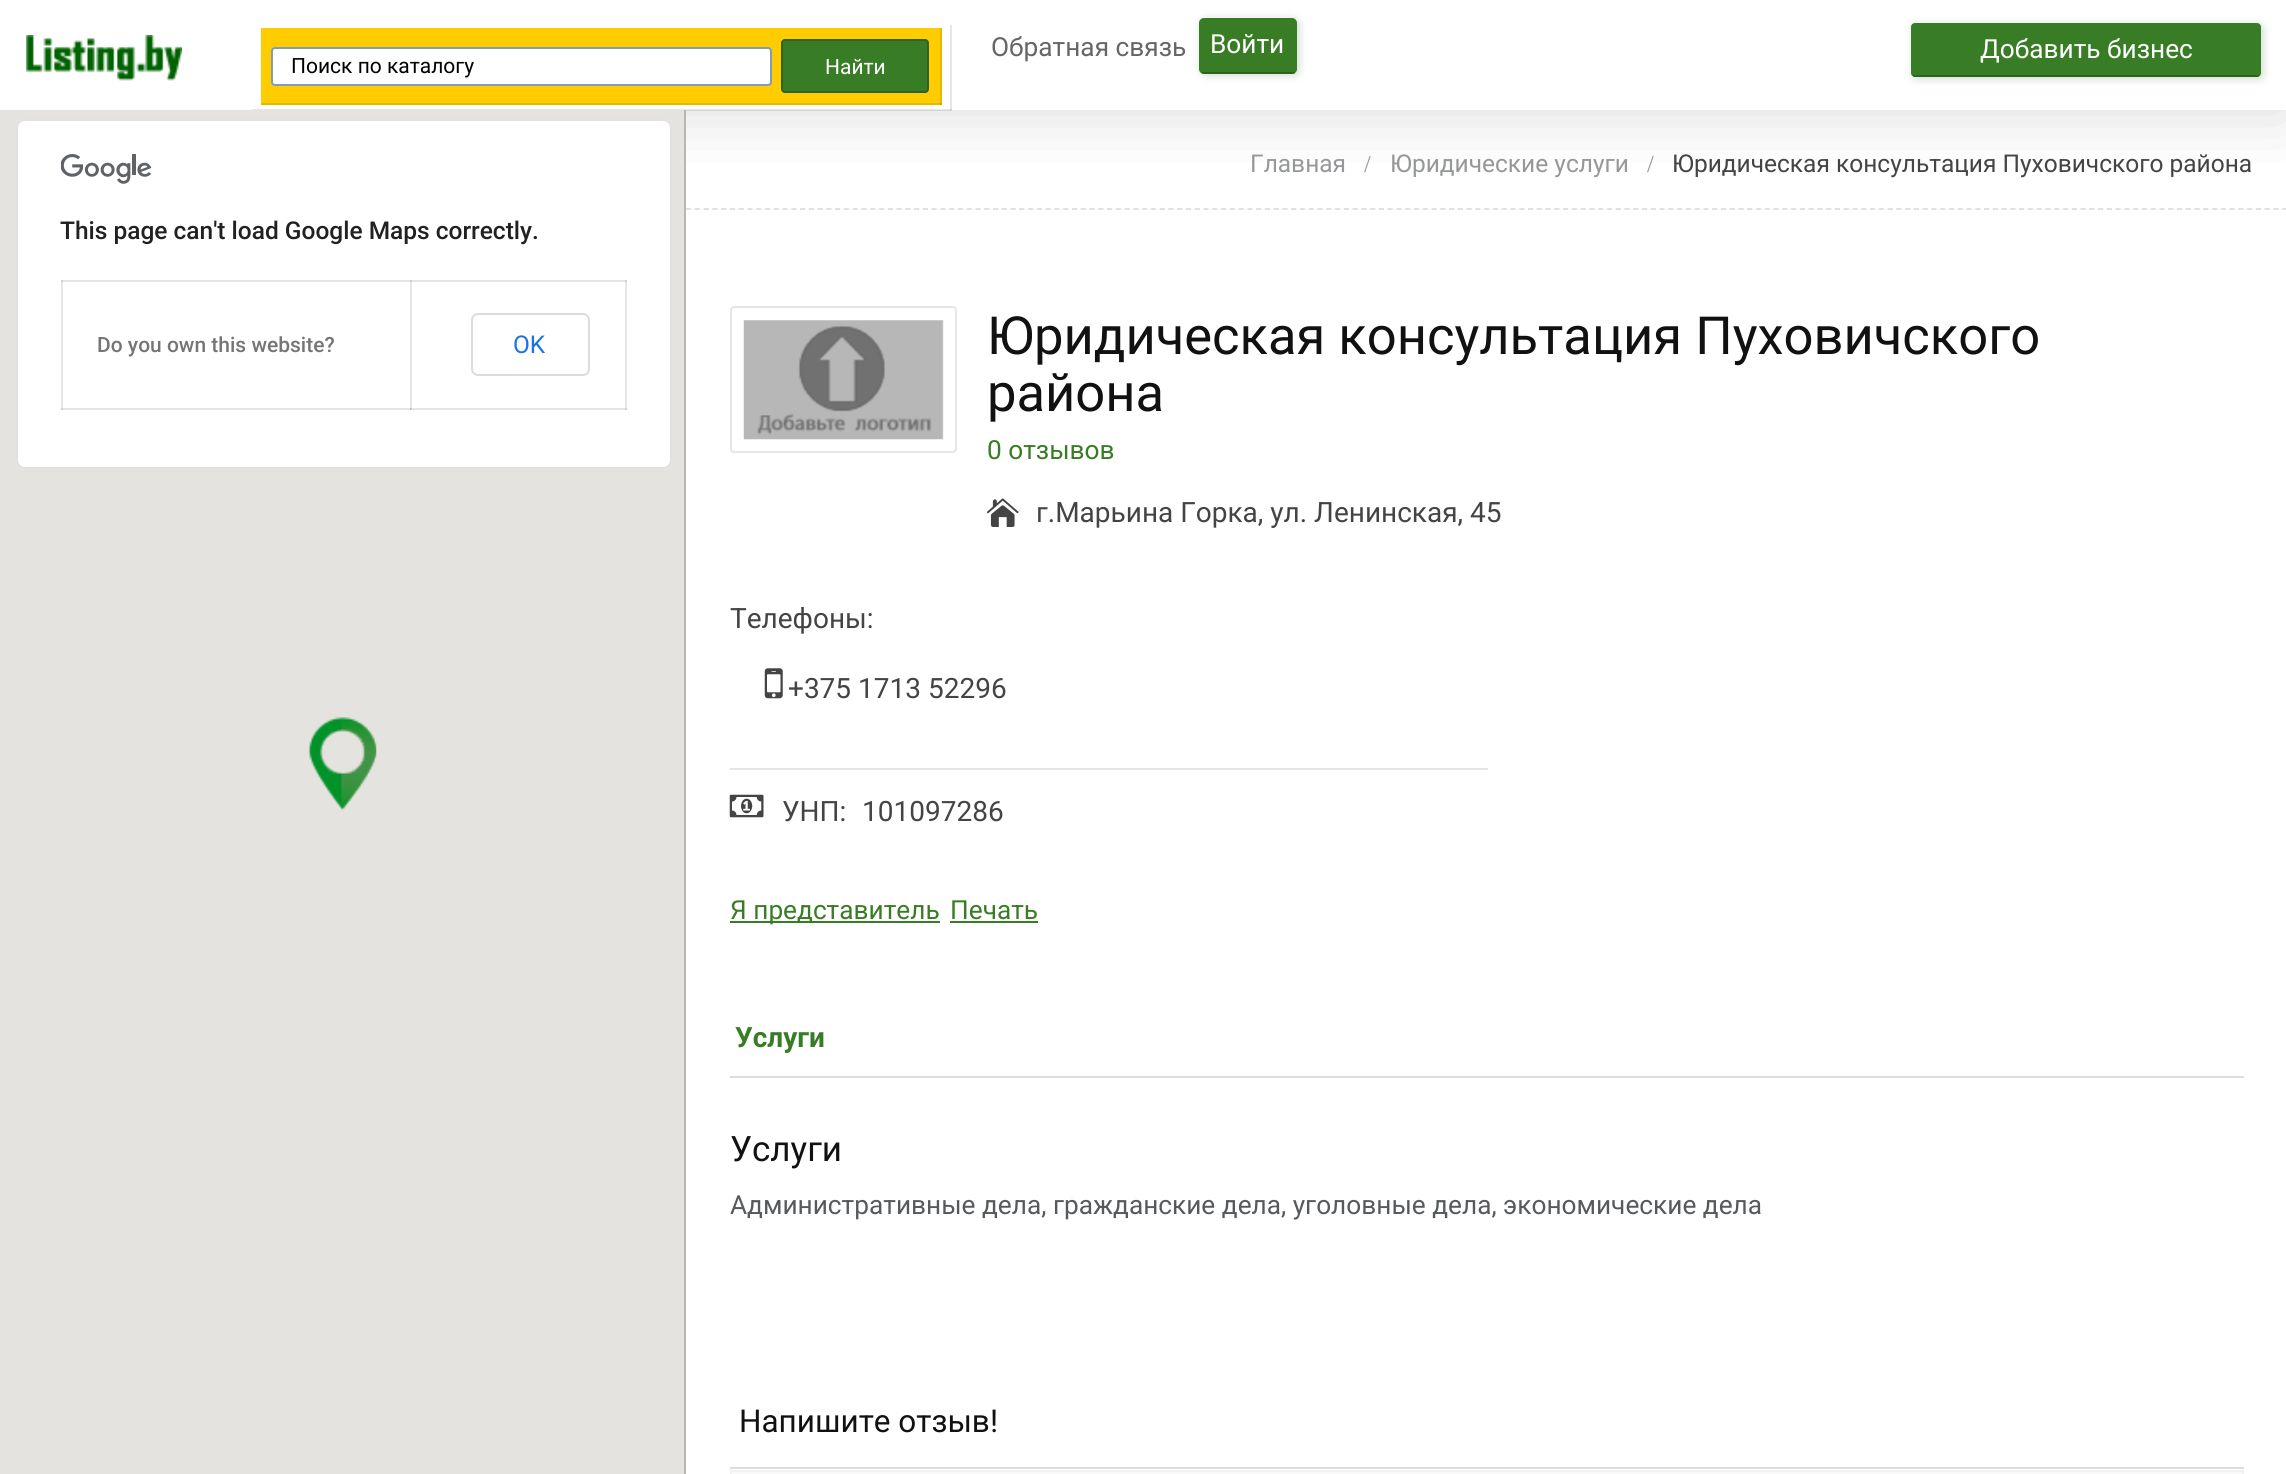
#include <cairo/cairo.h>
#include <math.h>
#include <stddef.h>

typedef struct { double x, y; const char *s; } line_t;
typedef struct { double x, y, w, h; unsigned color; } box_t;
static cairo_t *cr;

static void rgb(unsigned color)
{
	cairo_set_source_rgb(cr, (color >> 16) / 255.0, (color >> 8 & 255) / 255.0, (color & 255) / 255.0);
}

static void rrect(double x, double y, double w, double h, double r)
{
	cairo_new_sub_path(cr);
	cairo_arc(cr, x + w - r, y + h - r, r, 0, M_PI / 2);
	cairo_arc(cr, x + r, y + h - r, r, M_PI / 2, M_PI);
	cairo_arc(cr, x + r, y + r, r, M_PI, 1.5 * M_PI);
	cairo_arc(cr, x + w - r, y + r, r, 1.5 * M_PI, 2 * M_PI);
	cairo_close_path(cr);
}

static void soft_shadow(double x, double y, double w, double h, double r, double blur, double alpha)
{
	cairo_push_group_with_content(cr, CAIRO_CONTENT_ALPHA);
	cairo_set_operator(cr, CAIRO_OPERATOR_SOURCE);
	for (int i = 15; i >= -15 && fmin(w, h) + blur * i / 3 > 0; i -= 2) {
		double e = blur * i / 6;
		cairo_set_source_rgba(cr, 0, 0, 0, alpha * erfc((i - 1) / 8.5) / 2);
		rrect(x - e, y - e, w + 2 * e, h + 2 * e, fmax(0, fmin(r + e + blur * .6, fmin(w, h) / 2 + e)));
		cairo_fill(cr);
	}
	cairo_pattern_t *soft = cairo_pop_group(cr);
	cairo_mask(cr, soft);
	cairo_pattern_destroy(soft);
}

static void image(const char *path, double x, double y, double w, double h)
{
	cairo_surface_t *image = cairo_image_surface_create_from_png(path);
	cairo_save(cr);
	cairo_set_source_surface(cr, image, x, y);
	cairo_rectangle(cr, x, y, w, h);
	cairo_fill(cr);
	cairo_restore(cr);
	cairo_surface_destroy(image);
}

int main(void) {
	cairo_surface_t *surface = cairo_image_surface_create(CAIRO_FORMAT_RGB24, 2286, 1474);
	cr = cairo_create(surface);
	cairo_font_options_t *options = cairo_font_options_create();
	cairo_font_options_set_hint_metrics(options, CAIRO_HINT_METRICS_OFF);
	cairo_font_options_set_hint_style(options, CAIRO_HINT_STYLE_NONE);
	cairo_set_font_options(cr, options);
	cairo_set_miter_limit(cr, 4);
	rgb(0xffffff);
	cairo_paint(cr);
	cairo_save(cr);
	cairo_rectangle(cr, 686, 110, 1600, 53);
	cairo_clip(cr);
	rgb(0x808080);
	soft_shadow(0, 0, 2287, 110, 0, 35, 0.3);
	cairo_restore(cr);
	image("img/1.png", 26, 35, 156, 46);
	rgb(0xe6e6e6);
	cairo_rectangle(cr, 950, 25, 2, 85);
	cairo_fill(cr);
	cairo_set_source_rgba(cr, 0, 0, 0, 0.1);
	cairo_rectangle(cr, 252, 109, 700, 2);
	cairo_fill(cr);
	rgb(0xffcc00);
	cairo_rectangle(cr, 261, 28, 679, 75);
	cairo_fill(cr);
	rgb(0xe6b800);
	cairo_rectangle(cr, 261, 103, 681, 2);
	cairo_fill(cr);
	cairo_rectangle(cr, 940, 28, 2, 77);
	cairo_fill(cr);
	rgb(0xcfa600);
	cairo_rectangle(cr, 940, 103, 2, 2);
	cairo_fill(cr);
	rgb(0xffffff);
	rrect(272, 48, 499, 37, 3);
	cairo_fill_preserve(cr);
	rgb(0x7f9db9);
	cairo_stroke(cr);
	rgb(0x397c26);
	rrect(781, 39, 148, 54, 4);
	cairo_fill(cr);
	rrect(782, 40, 146, 52, 3);
	cairo_set_source_rgba(cr, 0, 0, 0, 0.2);
	cairo_stroke(cr);
	rgb(0x004000);
	soft_shadow(1201, 19, 98, 56, 5, 4.5, 0.2);
	rgb(0x397c26);
	rrect(1199, 18, 98, 56, 5);
	cairo_fill(cr);
	cairo_set_source_rgba(cr, 0, 0, 0, 0.2);
	cairo_rectangle(cr, 1202, 72, 93, 2);
	cairo_fill(cr);
	rgb(0x004000);
	soft_shadow(1913, 25, 350, 54, 4, 4.5, 0.2);
	rgb(0x397c26);
	rrect(1911, 23, 350, 54, 4);
	cairo_fill(cr);
	cairo_set_source_rgba(cr, 0, 0, 0, 0.2);
	cairo_rectangle(cr, 1913, 75, 346, 2);
	cairo_fill(cr);
	rgb(0xe5e3df);
	cairo_rectangle(cr, 0, 110, 684, 1364);
	cairo_fill(cr);
	image("img/2.png", 308, 717, 69, 94);
	rgb(0xffffff);
	rrect(16, 119, 656, 350, 9);
	cairo_fill(cr);
	{
		static const box_t items[] = {
			{61, 408, 350, 2, 0xe6e6e6},
			{410, 280, 2, 130, 0xe6e6e6},
			{410, 408, 217, 2, 0xe6e6e6},
			{410, 408, 2, 2, 0xcfcfcf},
			{410, 408, 1, 2, 0xbababa},
			{625, 280, 2, 130, 0xe6e6e6},
			{625, 408, 2, 2, 0xcfcfcf},
			{61, 280, 2, 130, 0xe6e6e6},
			{61, 408, 2, 2, 0xcfcfcf},
		};
		for (size_t i = 0; i < sizeof items / sizeof *items; i++) {
			rgb(items[i].color);
			cairo_rectangle(cr, items[i].x, items[i].y, items[i].w, items[i].h);
			cairo_fill(cr);
		}
	}
	rrect(17, 120, 654, 348, 8);
	cairo_set_source_rgba(cr, 0, 0, 0, 0.12);
	cairo_stroke(cr);
	image("img/3.png", 61, 154, 91, 30);
	{
		static const box_t items[] = {
			{61, 280, 566, 2, 0xe6e6e6},
			{410, 280, 2, 2, 0xcfcfcf},
			{625, 280, 2, 2, 0xcfcfcf},
			{61, 280, 2, 2, 0xcfcfcf},
		};
		for (size_t i = 0; i < sizeof items / sizeof *items; i++) {
			rgb(items[i].color);
			cairo_rectangle(cr, items[i].x, items[i].y, items[i].w, items[i].h);
			cairo_fill(cr);
		}
	}
	rrect(472, 314, 117, 61, 6);
	rgb(0xdadce0);
	cairo_stroke(cr);
	rgb(0xb7b6b2);
	cairo_rectangle(cr, 684, 110, 2, 1364);
	cairo_fill(cr);
	cairo_new_path(cr);
	cairo_move_to(cr, 686, 209);
	cairo_line_to(cr, 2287, 209);
	rgb(0xdedede);
	cairo_set_line_width(cr, 1.8);
	cairo_set_dash(cr, (double[]){5.25, 3.52}, 2, 0);
	cairo_stroke(cr);
	rrect(731, 307, 225, 145, 3);
	rgb(0xe6e6e6);
	cairo_set_line_width(cr, 2);
	cairo_set_dash(cr, NULL, 0, 0);
	cairo_stroke(cr);
	image("img/4.png", 743, 320, 201, 120);
	image("img/5.png", 986, 498, 33, 29);
	image("img/6.png", 764, 668, 19, 31);
	cairo_rectangle(cr, 730, 768, 758, 2);
	cairo_fill(cr);
	image("img/7.png", 729, 794, 35, 24);
	{
		static const box_t items[] = {
			{730, 921, 210, 2, 0x397c26},
			{950, 921, 88, 2, 0x397c26},
			{730, 1076, 1514, 2, 0xdedede},
			{730, 1467, 1514, 2, 0xdddddd},
		};
		for (size_t i = 0; i < sizeof items / sizeof *items; i++) {
			rgb(items[i].color);
			cairo_rectangle(cr, items[i].x, items[i].y, items[i].w, items[i].h);
			cairo_fill(cr);
		}
	}
	rgb(0xf9f9f9);
	cairo_rectangle(cr, 731, 1471, 1512, 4);
	cairo_fill_preserve(cr);
	rgb(0xf1f1f1);
	cairo_stroke(cr);
	cairo_select_font_face(cr, "Roboto", CAIRO_FONT_SLANT_NORMAL, CAIRO_FONT_WEIGHT_NORMAL);
	cairo_set_font_size(cr, 21);
	rgb(0x000000);
	cairo_move_to(cr, 291, 73);
	cairo_show_text(cr, "Поиск по каталогу");
	rgb(0xffffff);
	cairo_move_to(cr, 825, 74);
	cairo_show_text(cr, "Найти");
	cairo_set_font_size(cr, 26.25);
	rgb(0x666666);
	cairo_move_to(cr, 991, 56);
	cairo_show_text(cr, "Обратная связь");
	rgb(0xffffff);
	cairo_move_to(cr, 1210, 53);
	cairo_show_text(cr, "Войти");
	cairo_move_to(cr, 1980, 58);
	cairo_show_text(cr, "Добавить бизнес");
	cairo_select_font_face(cr, "Roboto Medium", CAIRO_FONT_SLANT_NORMAL, CAIRO_FONT_WEIGHT_NORMAL);
	cairo_set_font_size(cr, 24.5);
	rgb(0x212121);
	cairo_move_to(cr, 60, 239);
	cairo_show_text(cr, "This page can't load Google Maps correctly.");
	cairo_set_font_size(cr, 21);
	rgb(0x757575);
	cairo_move_to(cr, 97, 352);
	cairo_show_text(cr, "Do you own this website?");
	cairo_select_font_face(cr, "Roboto", CAIRO_FONT_SLANT_NORMAL, CAIRO_FONT_WEIGHT_NORMAL);
	cairo_set_font_size(cr, 24.5);
	rgb(0x1a73e8);
	cairo_move_to(cr, 513, 353);
	cairo_show_text(cr, "OK");
	rgb(0x959798);
	cairo_move_to(cr, 1250, 172);
	cairo_show_text(cr, "Главная");
	cairo_select_font_face(cr, "Liberation Serif", CAIRO_FONT_SLANT_NORMAL, CAIRO_FONT_WEIGHT_NORMAL);
	cairo_move_to(cr, 1364, 172);
	cairo_show_text(cr, "/");
	cairo_select_font_face(cr, "Roboto", CAIRO_FONT_SLANT_NORMAL, CAIRO_FONT_WEIGHT_NORMAL);
	cairo_move_to(cr, 1390, 172);
	cairo_show_text(cr, "Юридические услуги");
	cairo_select_font_face(cr, "Liberation Serif", CAIRO_FONT_SLANT_NORMAL, CAIRO_FONT_WEIGHT_NORMAL);
	cairo_move_to(cr, 1647, 172);
	cairo_show_text(cr, "/");
	cairo_select_font_face(cr, "Roboto", CAIRO_FONT_SLANT_NORMAL, CAIRO_FONT_WEIGHT_NORMAL);
	rgb(0x444444);
	cairo_move_to(cr, 1672, 172);
	cairo_show_text(cr, "Юридическая консультация Пуховичского района");
	cairo_set_font_size(cr, 52.5);
	rgb(0x111111);
	cairo_move_to(cr, 987, 354);
	cairo_show_text(cr, "Юридическая консультация Пуховичского");
	cairo_move_to(cr, 987, 411);
	cairo_show_text(cr, "района");
	cairo_set_font_size(cr, 26.25);
	rgb(0x397c26);
	cairo_move_to(cr, 987, 459);
	cairo_show_text(cr, "0 отзывов");
	cairo_set_font_size(cr, 28);
	rgb(0x444444);
	{
		static const line_t items[] = {
			{1036, 522, "г.Марьина Горка, ул. Ленинская, 45"},
			{730, 628, "Телефоны:"},
			{788, 698, "+375 1713 52296"},
			{782, 821, "УНП:"},
			{862, 821, "101097286"},
		};
		for (size_t i = 0; i < sizeof items / sizeof *items; i++) {
			cairo_move_to(cr, items[i].x, items[i].y);
			cairo_show_text(cr, items[i].s);
		}
	}
	cairo_set_font_size(cr, 26.25);
	rgb(0x397c26);
	cairo_move_to(cr, 730, 919);
	cairo_show_text(cr, "Я представитель");
	cairo_move_to(cr, 950, 919);
	cairo_show_text(cr, "Печать");
	cairo_select_font_face(cr, "Roboto", CAIRO_FONT_SLANT_NORMAL, CAIRO_FONT_WEIGHT_BOLD);
	cairo_set_font_size(cr, 28);
	cairo_move_to(cr, 735, 1047);
	cairo_show_text(cr, "Услуги");
	cairo_select_font_face(cr, "Roboto", CAIRO_FONT_SLANT_NORMAL, CAIRO_FONT_WEIGHT_NORMAL);
	cairo_set_font_size(cr, 35);
	rgb(0x111111);
	cairo_move_to(cr, 730, 1161);
	cairo_show_text(cr, "Услуги");
	cairo_set_font_size(cr, 26.25);
	rgb(0x565a5c);
	cairo_move_to(cr, 730, 1214);
	cairo_show_text(cr, "Административные дела, гражданские дела, уголовные дела, экономические дела");
	cairo_set_font_size(cr, 31.5);
	rgb(0x111111);
	cairo_move_to(cr, 739, 1432);
	cairo_show_text(cr, "Напишите отзыв!");
	cairo_surface_write_to_png(surface, "page.png");
	cairo_font_options_destroy(options);
	cairo_destroy(cr);
	cairo_surface_destroy(surface);
	return 0;
}
